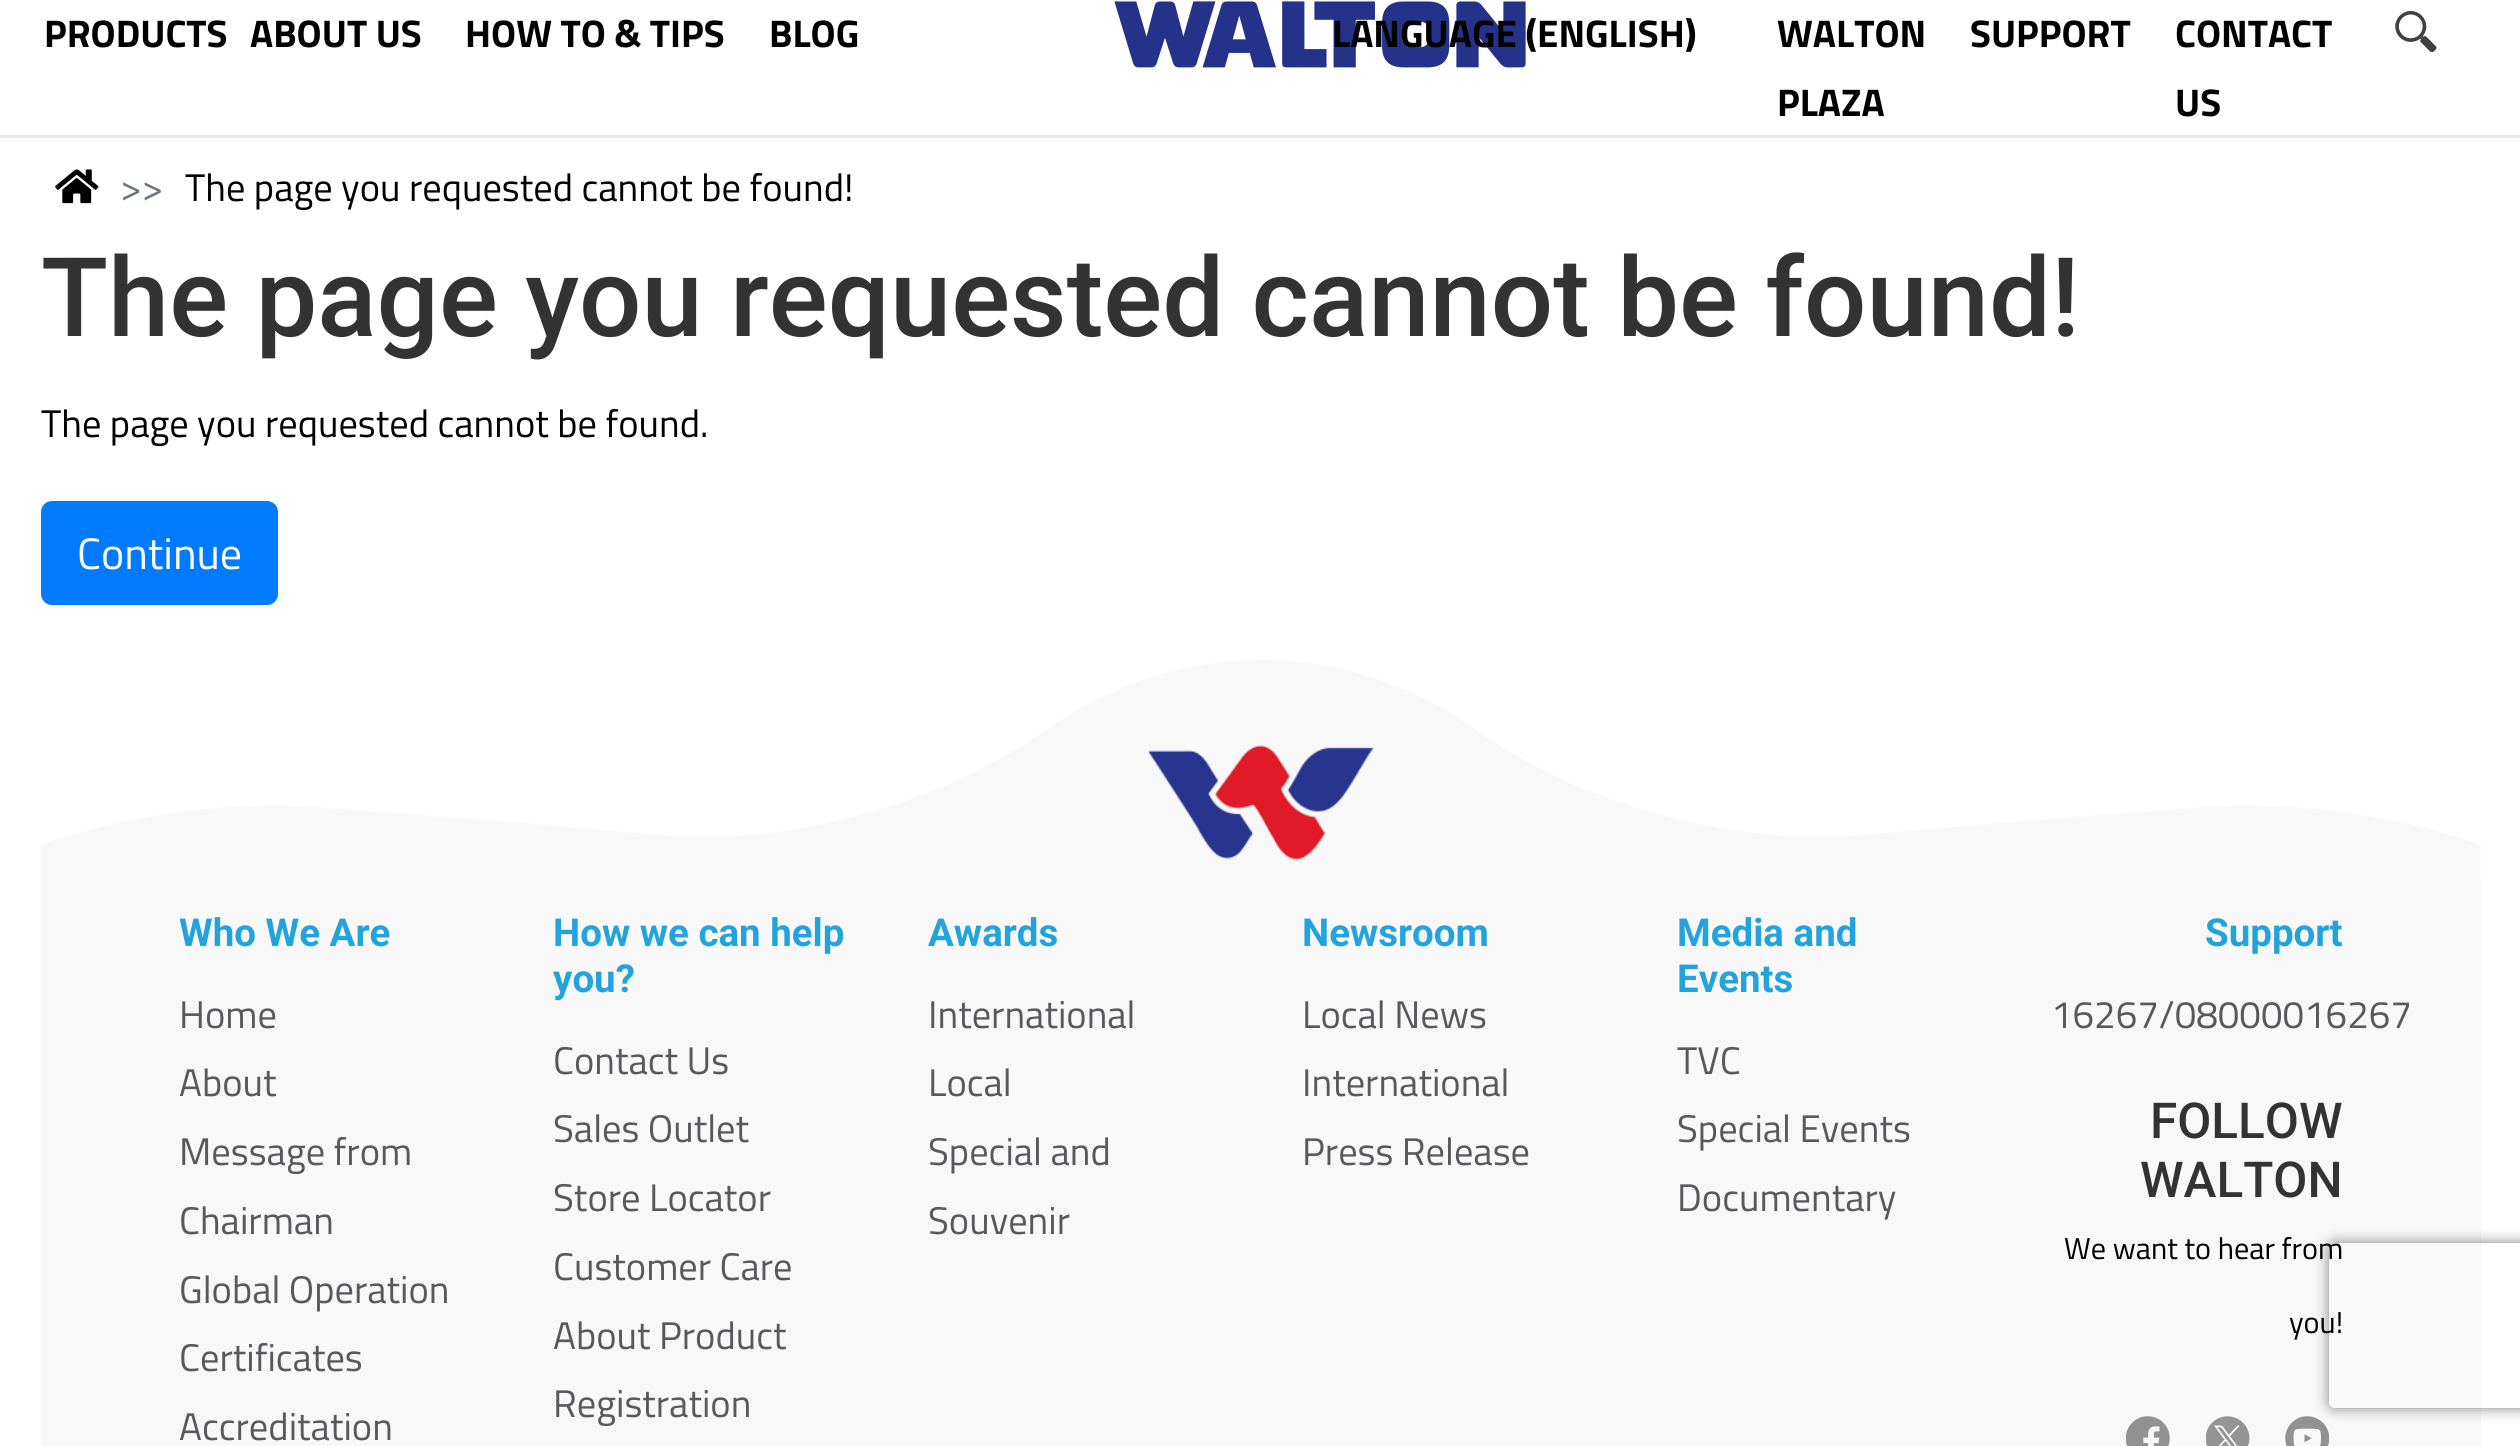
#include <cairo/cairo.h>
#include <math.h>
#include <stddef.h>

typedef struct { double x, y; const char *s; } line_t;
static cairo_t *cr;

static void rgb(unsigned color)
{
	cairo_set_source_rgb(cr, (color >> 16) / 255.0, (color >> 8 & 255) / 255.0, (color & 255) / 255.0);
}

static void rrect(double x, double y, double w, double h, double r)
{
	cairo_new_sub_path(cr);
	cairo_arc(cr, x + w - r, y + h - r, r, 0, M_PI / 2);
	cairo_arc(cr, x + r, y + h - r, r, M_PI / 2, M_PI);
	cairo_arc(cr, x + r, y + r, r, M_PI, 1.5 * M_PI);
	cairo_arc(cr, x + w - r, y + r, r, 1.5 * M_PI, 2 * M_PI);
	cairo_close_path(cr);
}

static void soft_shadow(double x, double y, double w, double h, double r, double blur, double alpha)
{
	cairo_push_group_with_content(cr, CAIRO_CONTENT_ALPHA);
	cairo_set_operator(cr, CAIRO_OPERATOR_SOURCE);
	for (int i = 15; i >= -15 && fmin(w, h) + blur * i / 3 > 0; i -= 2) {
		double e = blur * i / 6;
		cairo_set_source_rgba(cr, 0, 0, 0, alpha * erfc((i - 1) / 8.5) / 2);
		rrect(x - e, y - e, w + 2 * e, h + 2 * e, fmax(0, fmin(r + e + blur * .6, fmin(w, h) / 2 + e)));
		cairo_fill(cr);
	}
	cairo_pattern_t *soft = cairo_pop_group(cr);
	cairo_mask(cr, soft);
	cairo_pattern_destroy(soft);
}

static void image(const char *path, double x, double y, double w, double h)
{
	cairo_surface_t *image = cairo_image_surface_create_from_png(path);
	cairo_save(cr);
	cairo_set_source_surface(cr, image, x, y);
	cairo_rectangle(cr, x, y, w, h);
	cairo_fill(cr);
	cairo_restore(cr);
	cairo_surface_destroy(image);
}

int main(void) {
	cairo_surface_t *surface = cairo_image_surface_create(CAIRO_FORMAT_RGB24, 2520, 1446);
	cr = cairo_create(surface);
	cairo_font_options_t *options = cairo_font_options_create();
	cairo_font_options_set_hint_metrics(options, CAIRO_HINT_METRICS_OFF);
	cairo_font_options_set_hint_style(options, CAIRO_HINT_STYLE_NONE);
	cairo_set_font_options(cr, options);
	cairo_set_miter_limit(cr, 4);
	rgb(0xffffff);
	cairo_paint(cr);
	rgb(0xe7e7e7);
	cairo_rectangle(cr, 0, 135, 2520, 3);
	cairo_fill(cr);
	image("img/1.png", 1114, 1, 412, 67);
	image("img/2.png", 2395, 11, 42, 41);
	image("img/3.png", 55, 169, 44, 35);
	rgb(0x007bff);
	rrect(42.5, 502.5, 234, 101, 9.5);
	cairo_fill_preserve(cr);
	cairo_set_line_width(cr, 3);
	cairo_stroke(cr);
	image("img/4.png", 41, 660, 2440, 223);
	rgb(0xf8f8f9);
	cairo_rectangle(cr, 41, 883, 2440, 563);
	cairo_fill(cr);
	image("img/5.png", 2126, 1416, 44, 30);
	image("img/6.png", 2206, 1416, 44, 30);
	image("img/7.png", 2285, 1416, 44, 30);
	cairo_save(cr);
	cairo_set_fill_rule(cr, CAIRO_FILL_RULE_EVEN_ODD);
	cairo_new_path(cr);
	cairo_move_to(cr, 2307, 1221);
	cairo_line_to(cr, 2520, 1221);
	cairo_line_to(cr, 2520, 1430);
	cairo_line_to(cr, 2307, 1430);
	cairo_close_path(cr);
	cairo_move_to(cr, 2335, 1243);
	cairo_line_to(cr, 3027, 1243);
	cairo_curve_to(cr, 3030.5, 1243, 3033, 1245.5, 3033, 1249);
	cairo_line_to(cr, 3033, 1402);
	cairo_curve_to(cr, 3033, 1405.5, 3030.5, 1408, 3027, 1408);
	cairo_line_to(cr, 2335, 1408);
	cairo_curve_to(cr, 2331.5, 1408, 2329, 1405.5, 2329, 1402);
	cairo_line_to(cr, 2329, 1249);
	cairo_curve_to(cr, 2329, 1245.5, 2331.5, 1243, 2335, 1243);
	cairo_close_path(cr);
	cairo_clip(cr);
	rgb(0x808080);
	soft_shadow(2329, 1243, 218, 165, 6, 7, 1);
	cairo_restore(cr);
	cairo_select_font_face(cr, "Titillium Web", CAIRO_FONT_SLANT_NORMAL, CAIRO_FONT_WEIGHT_BOLD);
	cairo_set_font_size(cr, 38.5);
	rgb(0x000000);
	{
		static const line_t items[] = {
			{44, 47, "PRODUCTS"},
			{250, 47, "ABOUT US"},
			{465, 47, "HOW TO & TIPS"},
			{769, 47, "BLOG"},
			{1332, 47, "LANGUAGE (ENGLISH)"},
			{1777, 47, "WALTON"},
			{1777, 116, "PLAZA"},
			{1970, 47, "SUPPORT"},
			{2175, 47, "CONTACT"},
			{2175, 116, "US"},
		};
		for (size_t i = 0; i < sizeof items / sizeof *items; i++) {
			cairo_move_to(cr, items[i].x, items[i].y);
			cairo_show_text(cr, items[i].s);
		}
	}
	cairo_select_font_face(cr, "Titillium Web", CAIRO_FONT_SLANT_NORMAL, CAIRO_FONT_WEIGHT_NORMAL);
	rgb(0x6c757d);
	cairo_move_to(cr, 120, 201);
	cairo_show_text(cr, ">>");
	rgb(0x000000);
	cairo_move_to(cr, 185, 201);
	cairo_show_text(cr, "The page you requested cannot be found!");
	cairo_select_font_face(cr, "Roboto Medium", CAIRO_FONT_SLANT_NORMAL, CAIRO_FONT_WEIGHT_NORMAL);
	cairo_set_font_size(cr, 110);
	rgb(0x333333);
	cairo_move_to(cr, 41, 336);
	cairo_show_text(cr, "The page you requested cannot be found!");
	cairo_select_font_face(cr, "Titillium Web", CAIRO_FONT_SLANT_NORMAL, CAIRO_FONT_WEIGHT_NORMAL);
	cairo_set_font_size(cr, 38.5);
	rgb(0x000000);
	cairo_move_to(cr, 41, 437);
	cairo_show_text(cr, "The page you requested cannot be found.");
	cairo_set_font_size(cr, 44);
	rgb(0xffffff);
	cairo_move_to(cr, 77, 569);
	cairo_show_text(cr, "Continue");
	cairo_select_font_face(cr, "Roboto", CAIRO_FONT_SLANT_NORMAL, CAIRO_FONT_WEIGHT_BOLD);
	cairo_set_font_size(cr, 38.5);
	rgb(0x23a3dd);
	cairo_move_to(cr, 179, 946);
	cairo_show_text(cr, "Who We Are");
	cairo_select_font_face(cr, "Titillium Web", CAIRO_FONT_SLANT_NORMAL, CAIRO_FONT_WEIGHT_NORMAL);
	rgb(0x59595c);
	{
		static const line_t items[] = {
			{179, 1028, "Home"},
			{179, 1096, "About"},
			{179, 1165, "Message from"},
			{179, 1234, "Chairman"},
			{179, 1303, "Global Operation"},
			{179, 1371, "Certificates"},
			{179, 1440, "Accreditation"},
		};
		for (size_t i = 0; i < sizeof items / sizeof *items; i++) {
			cairo_move_to(cr, items[i].x, items[i].y);
			cairo_show_text(cr, items[i].s);
		}
	}
	cairo_select_font_face(cr, "Roboto", CAIRO_FONT_SLANT_NORMAL, CAIRO_FONT_WEIGHT_BOLD);
	rgb(0x23a3dd);
	cairo_move_to(cr, 553, 946);
	cairo_show_text(cr, "How we can help");
	cairo_move_to(cr, 553, 992);
	cairo_show_text(cr, "you?");
	cairo_select_font_face(cr, "Titillium Web", CAIRO_FONT_SLANT_NORMAL, CAIRO_FONT_WEIGHT_NORMAL);
	rgb(0x59595c);
	{
		static const line_t items[] = {
			{553, 1074, "Contact Us"},
			{553, 1142, "Sales Outlet"},
			{553, 1211, "Store Locator"},
			{553, 1280, "Customer Care"},
			{553, 1349, "About Product"},
			{553, 1417, "Registration"},
		};
		for (size_t i = 0; i < sizeof items / sizeof *items; i++) {
			cairo_move_to(cr, items[i].x, items[i].y);
			cairo_show_text(cr, items[i].s);
		}
	}
	cairo_select_font_face(cr, "Roboto", CAIRO_FONT_SLANT_NORMAL, CAIRO_FONT_WEIGHT_BOLD);
	rgb(0x23a3dd);
	cairo_move_to(cr, 928, 946);
	cairo_show_text(cr, "Awards");
	cairo_select_font_face(cr, "Titillium Web", CAIRO_FONT_SLANT_NORMAL, CAIRO_FONT_WEIGHT_NORMAL);
	rgb(0x59595c);
	{
		static const line_t items[] = {
			{928, 1028, "International"},
			{928, 1096, "Local"},
			{928, 1165, "Special and"},
			{928, 1234, "Souvenir"},
		};
		for (size_t i = 0; i < sizeof items / sizeof *items; i++) {
			cairo_move_to(cr, items[i].x, items[i].y);
			cairo_show_text(cr, items[i].s);
		}
	}
	cairo_select_font_face(cr, "Roboto", CAIRO_FONT_SLANT_NORMAL, CAIRO_FONT_WEIGHT_BOLD);
	rgb(0x23a3dd);
	cairo_move_to(cr, 1302, 946);
	cairo_show_text(cr, "Newsroom");
	cairo_select_font_face(cr, "Titillium Web", CAIRO_FONT_SLANT_NORMAL, CAIRO_FONT_WEIGHT_NORMAL);
	rgb(0x59595c);
	{
		static const line_t items[] = {
			{1302, 1028, "Local News"},
			{1302, 1096, "International"},
			{1302, 1165, "Press Release"},
		};
		for (size_t i = 0; i < sizeof items / sizeof *items; i++) {
			cairo_move_to(cr, items[i].x, items[i].y);
			cairo_show_text(cr, items[i].s);
		}
	}
	cairo_select_font_face(cr, "Roboto", CAIRO_FONT_SLANT_NORMAL, CAIRO_FONT_WEIGHT_BOLD);
	rgb(0x23a3dd);
	cairo_move_to(cr, 1677, 946);
	cairo_show_text(cr, "Media and");
	cairo_move_to(cr, 1677, 992);
	cairo_show_text(cr, "Events");
	cairo_select_font_face(cr, "Titillium Web", CAIRO_FONT_SLANT_NORMAL, CAIRO_FONT_WEIGHT_NORMAL);
	rgb(0x59595c);
	{
		static const line_t items[] = {
			{1677, 1074, "TVC"},
			{1677, 1142, "Special Events"},
			{1677, 1211, "Documentary"},
		};
		for (size_t i = 0; i < sizeof items / sizeof *items; i++) {
			cairo_move_to(cr, items[i].x, items[i].y);
			cairo_show_text(cr, items[i].s);
		}
	}
	cairo_select_font_face(cr, "Roboto", CAIRO_FONT_SLANT_NORMAL, CAIRO_FONT_WEIGHT_BOLD);
	rgb(0x23a3dd);
	cairo_move_to(cr, 2205, 946);
	cairo_show_text(cr, "Support");
	cairo_select_font_face(cr, "Titillium Web", CAIRO_FONT_SLANT_NORMAL, CAIRO_FONT_WEIGHT_NORMAL);
	rgb(0x59595c);
	cairo_move_to(cr, 2051, 1028);
	cairo_show_text(cr, "16267/08000016267");
	cairo_select_font_face(cr, "Roboto Medium", CAIRO_FONT_SLANT_NORMAL, CAIRO_FONT_WEIGHT_NORMAL);
	cairo_set_font_size(cr, 49.5);
	rgb(0x333333);
	cairo_move_to(cr, 2150, 1138);
	cairo_show_text(cr, "FOLLOW");
	cairo_move_to(cr, 2140, 1197);
	cairo_show_text(cr, "WALTON");
	cairo_select_font_face(cr, "Titillium Web", CAIRO_FONT_SLANT_NORMAL, CAIRO_FONT_WEIGHT_NORMAL);
	cairo_set_font_size(cr, 30.25);
	rgb(0x000000);
	cairo_move_to(cr, 2064, 1259);
	cairo_show_text(cr, "We want to hear from");
	cairo_move_to(cr, 2289, 1333);
	cairo_show_text(cr, "you!");
	cairo_surface_write_to_png(surface, "page.png");
	cairo_font_options_destroy(options);
	cairo_destroy(cr);
	cairo_surface_destroy(surface);
	return 0;
}
